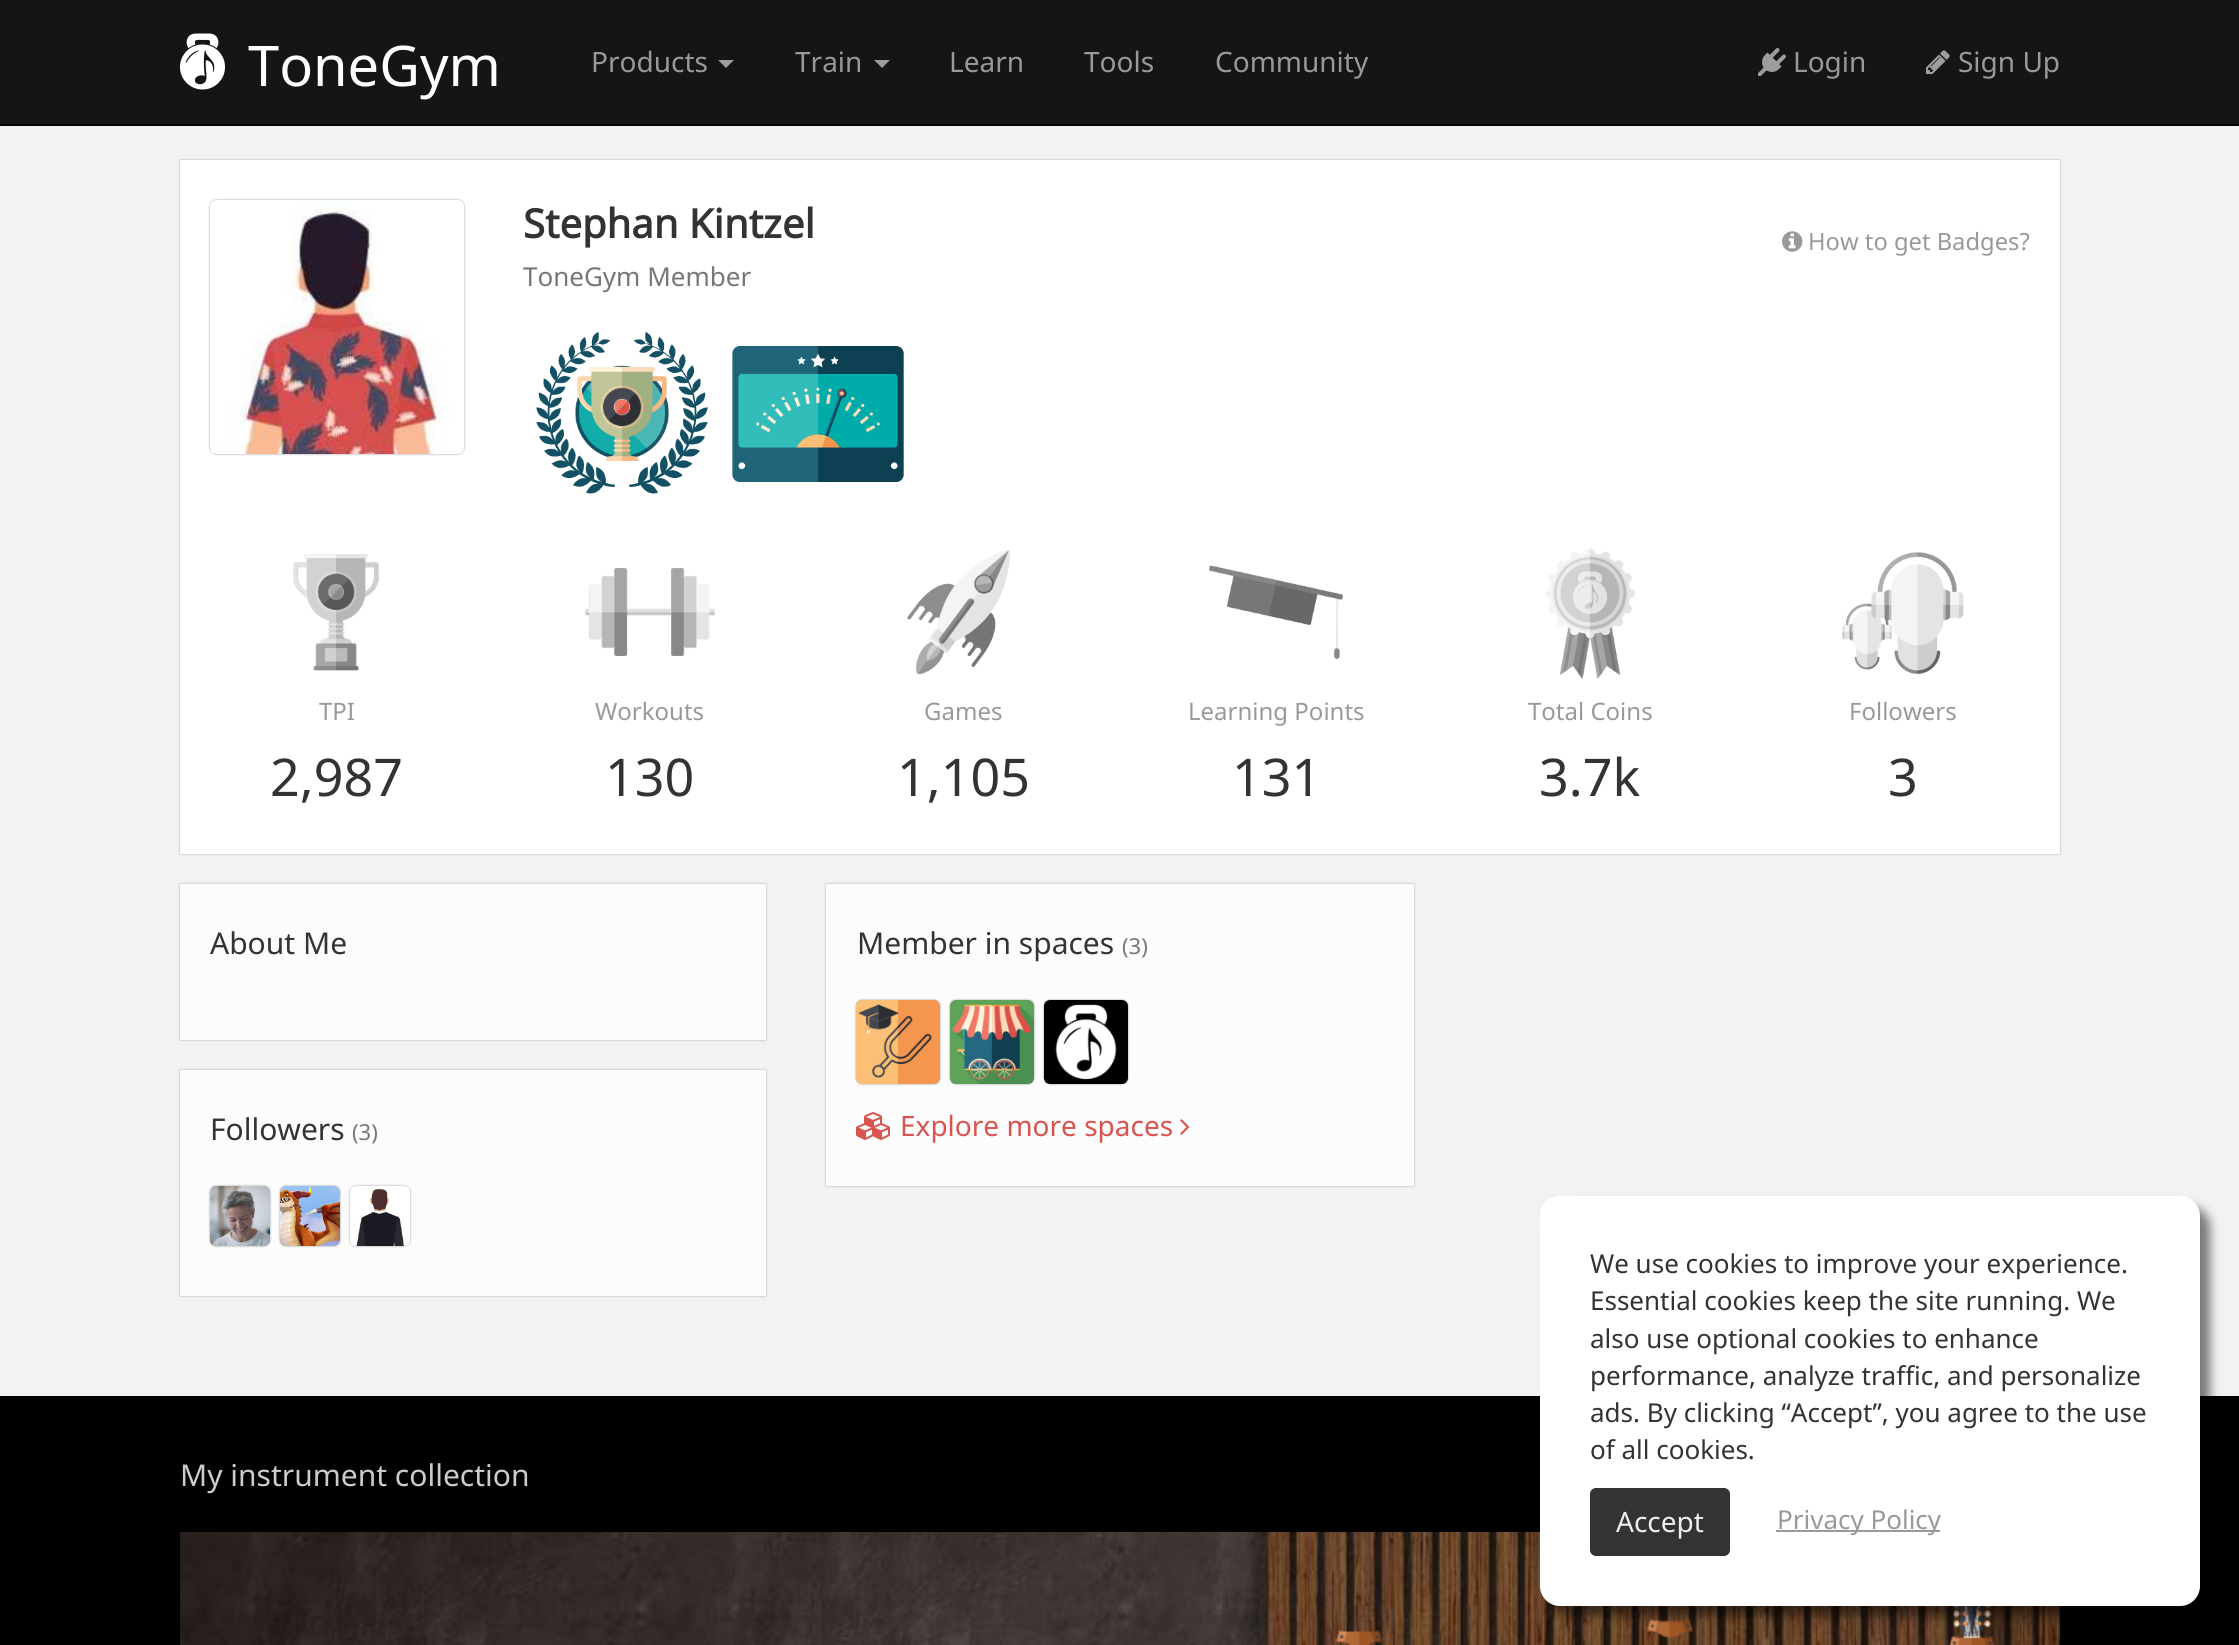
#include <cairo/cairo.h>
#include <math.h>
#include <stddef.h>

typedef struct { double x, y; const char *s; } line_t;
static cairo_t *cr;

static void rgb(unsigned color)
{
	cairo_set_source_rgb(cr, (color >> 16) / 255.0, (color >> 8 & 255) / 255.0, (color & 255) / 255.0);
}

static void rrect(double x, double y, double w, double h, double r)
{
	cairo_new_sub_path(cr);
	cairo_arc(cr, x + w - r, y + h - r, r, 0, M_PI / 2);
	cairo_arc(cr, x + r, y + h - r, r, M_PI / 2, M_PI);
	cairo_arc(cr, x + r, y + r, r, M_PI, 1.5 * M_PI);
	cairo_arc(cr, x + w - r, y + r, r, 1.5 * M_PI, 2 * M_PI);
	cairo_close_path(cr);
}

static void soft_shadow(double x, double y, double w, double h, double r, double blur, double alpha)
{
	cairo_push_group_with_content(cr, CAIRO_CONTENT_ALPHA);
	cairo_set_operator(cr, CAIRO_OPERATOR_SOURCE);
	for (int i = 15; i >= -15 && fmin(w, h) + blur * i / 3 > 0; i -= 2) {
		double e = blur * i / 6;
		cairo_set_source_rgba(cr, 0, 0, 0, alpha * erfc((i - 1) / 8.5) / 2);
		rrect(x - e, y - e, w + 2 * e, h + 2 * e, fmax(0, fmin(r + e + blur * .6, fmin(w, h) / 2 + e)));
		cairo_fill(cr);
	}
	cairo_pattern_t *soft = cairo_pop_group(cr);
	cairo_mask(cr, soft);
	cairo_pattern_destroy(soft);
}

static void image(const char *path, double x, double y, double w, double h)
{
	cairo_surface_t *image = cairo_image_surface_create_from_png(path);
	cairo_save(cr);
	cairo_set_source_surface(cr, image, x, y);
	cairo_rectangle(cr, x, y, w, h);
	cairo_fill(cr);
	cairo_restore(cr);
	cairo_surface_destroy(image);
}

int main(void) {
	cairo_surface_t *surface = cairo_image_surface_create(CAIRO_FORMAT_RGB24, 2239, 1645);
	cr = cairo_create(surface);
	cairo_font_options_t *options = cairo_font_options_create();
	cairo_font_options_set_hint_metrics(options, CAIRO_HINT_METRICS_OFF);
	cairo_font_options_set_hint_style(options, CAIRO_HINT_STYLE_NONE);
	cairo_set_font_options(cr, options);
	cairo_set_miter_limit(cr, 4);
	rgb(0xf2f2f2);
	cairo_paint(cr);
	rgb(0x151515);
	cairo_rectangle(cr, 0, 0, 2239, 124);
	cairo_fill(cr);
	rgb(0x000000);
	cairo_rectangle(cr, 0, 124, 2239, 2);
	cairo_fill(cr);
	image("img/1.png", 180, 33, 45, 57);
	rgb(0x9d9d9d);
	cairo_new_path(cr);
	cairo_move_to(cr, 718, 60);
	cairo_line_to(cr, 734, 60);
	cairo_line_to(cr, 726, 68);
	cairo_close_path(cr);
	cairo_fill(cr);
	cairo_new_path(cr);
	cairo_move_to(cr, 874, 60);
	cairo_line_to(cr, 890, 60);
	cairo_line_to(cr, 882, 68);
	cairo_close_path(cr);
	cairo_fill(cr);
	image("img/2.png", 1758, 48, 28, 28);
	image("img/3.png", 1926, 50, 24, 24);
	rgb(0xaaaaaa);
	soft_shadow(180, 160, 1880, 694, 0, 1, 1);
	rgb(0xffffff);
	cairo_rectangle(cr, 180, 160, 1880, 694);
	cairo_fill(cr);
	rgb(0x999999);
	soft_shadow(210, 200, 254, 254, 6, 1, 1);
	image("img/4.png", 210, 200, 254, 254);
	image("img/5.png", 1782, 231, 21, 21);
	image("img/6.png", 536, 331, 172, 163);
	image("img/7.png", 732, 346, 172, 136);
	image("img/8.png", 293, 554, 86, 117);
	image("img/9.png", 585, 568, 130, 88);
	image("img/10.png", 907, 550, 103, 125);
	image("img/11.png", 1209, 565, 135, 94);
	image("img/12.png", 1545, 548, 90, 131);
	image("img/13.png", 1842, 552, 122, 123);
	rgb(0xaaaaaa);
	soft_shadow(180, 884, 586, 156, 0, 1, 1);
	rgb(0xfcfcfc);
	cairo_rectangle(cr, 180, 884, 586, 156);
	cairo_fill(cr);
	rgb(0xaaaaaa);
	soft_shadow(180, 1070, 586, 226, 0, 1, 1);
	rgb(0xfcfcfc);
	cairo_rectangle(cr, 180, 1070, 586, 226);
	cairo_fill(cr);
	rgb(0x999999);
	soft_shadow(210, 1186, 60, 60, 6, 1, 1);
	image("img/14.png", 210, 1186, 60, 60);
	soft_shadow(280, 1186, 60, 60, 6, 1, 1);
	image("img/15.png", 280, 1186, 60, 60);
	soft_shadow(350, 1186, 60, 60, 6, 1, 1);
	image("img/16.png", 350, 1186, 60, 60);
	rgb(0xaaaaaa);
	soft_shadow(826, 884, 588, 302, 0, 1, 1);
	rgb(0xfcfcfc);
	cairo_rectangle(cr, 826, 884, 588, 302);
	cairo_fill(cr);
	rgb(0x999999);
	soft_shadow(856, 1000, 84, 84, 6, 1, 1);
	image("img/17.png", 856, 1000, 84, 84);
	soft_shadow(950, 1000, 84, 84, 6, 1, 1);
	image("img/18.png", 950, 1000, 84, 84);
	soft_shadow(1044, 1000, 84, 84, 6, 1, 1);
	image("img/19.png", 1044, 1000, 84, 84);
	image("img/20.png", 856, 1112, 34, 28);
	image("img/21.png", 1180, 1119, 10, 16);
	rgb(0x000000);
	cairo_rectangle(cr, 0, 1396, 2239, 249);
	cairo_fill(cr);
	image("img/22.png", 180, 1532, 1880, 113);
	image("img/23.png", 1944, 1606, 78, 39);
	image("img/24.png", 1335, 1618, 660, 27);
	rgb(0x000000);
	soft_shadow(1550, 1206, 660, 410, 20, 5, 0.5);
	rgb(0xffffff);
	rrect(1540, 1196, 660, 410, 20);
	cairo_fill(cr);
	rgb(0x333333);
	rrect(1590, 1488, 140, 68, 6);
	cairo_fill(cr);
	rgb(0x999999);
	cairo_rectangle(cr, 1776, 1530, 164, 2);
	cairo_fill(cr);
	cairo_select_font_face(cr, "Noto Sans", CAIRO_FONT_SLANT_NORMAL, CAIRO_FONT_WEIGHT_NORMAL);
	cairo_set_font_size(cr, 56);
	rgb(0xffffff);
	cairo_move_to(cr, 248, 86);
	cairo_show_text(cr, "ToneGym");
	cairo_set_font_size(cr, 28);
	rgb(0x999999);
	{
		static const line_t items[] = {
			{591, 72, "Products"},
			{795, 72, "Train"},
			{949, 72, "Learn"},
			{1084, 72, "Tools"},
			{1215, 72, "Community"},
			{1793, 72, "Login"},
			{1958, 72, "Sign Up"},
		};
		for (size_t i = 0; i < sizeof items / sizeof *items; i++) {
			cairo_move_to(cr, items[i].x, items[i].y);
			cairo_show_text(cr, items[i].s);
		}
	}
	cairo_select_font_face(cr, "Noto Sans", CAIRO_FONT_SLANT_NORMAL, CAIRO_FONT_WEIGHT_BOLD);
	cairo_set_font_size(cr, 40);
	rgb(0x333333);
	cairo_move_to(cr, 523, 238);
	cairo_show_text(cr, "Stephan Kintzel");
	cairo_select_font_face(cr, "Noto Sans", CAIRO_FONT_SLANT_NORMAL, CAIRO_FONT_WEIGHT_NORMAL);
	cairo_set_font_size(cr, 26);
	rgb(0x777777);
	cairo_move_to(cr, 523, 286);
	cairo_show_text(cr, "ToneGym Member");
	cairo_set_font_size(cr, 23.75);
	rgb(0x999999);
	cairo_move_to(cr, 1808, 250);
	cairo_show_text(cr, "How to get Badges?");
	cairo_set_font_size(cr, 24);
	cairo_move_to(cr, 319, 720);
	cairo_show_text(cr, "TPI");
	cairo_set_font_size(cr, 52);
	rgb(0x333333);
	cairo_move_to(cr, 270, 796);
	cairo_show_text(cr, "2,987");
	cairo_set_font_size(cr, 24);
	rgb(0x999999);
	cairo_move_to(cr, 595, 720);
	cairo_show_text(cr, "Workouts");
	cairo_set_font_size(cr, 52);
	rgb(0x333333);
	cairo_move_to(cr, 605, 796);
	cairo_show_text(cr, "130");
	cairo_set_font_size(cr, 24);
	rgb(0x999999);
	cairo_move_to(cr, 924, 720);
	cairo_show_text(cr, "Games");
	cairo_set_font_size(cr, 52);
	rgb(0x333333);
	cairo_move_to(cr, 897, 796);
	cairo_show_text(cr, "1,105");
	cairo_set_font_size(cr, 24);
	rgb(0x999999);
	cairo_move_to(cr, 1188, 720);
	cairo_show_text(cr, "Learning Points");
	cairo_set_font_size(cr, 52);
	rgb(0x333333);
	cairo_move_to(cr, 1232, 796);
	cairo_show_text(cr, "131");
	cairo_set_font_size(cr, 24);
	rgb(0x999999);
	cairo_move_to(cr, 1528, 720);
	cairo_show_text(cr, "Total Coins");
	cairo_set_font_size(cr, 52);
	rgb(0x333333);
	cairo_move_to(cr, 1539, 796);
	cairo_show_text(cr, "3.7k");
	cairo_set_font_size(cr, 24);
	rgb(0x999999);
	cairo_move_to(cr, 1849, 720);
	cairo_show_text(cr, "Followers");
	cairo_set_font_size(cr, 52);
	rgb(0x333333);
	cairo_move_to(cr, 1888, 796);
	cairo_show_text(cr, "3");
	cairo_set_font_size(cr, 30);
	cairo_move_to(cr, 210, 954);
	cairo_show_text(cr, "About Me");
	cairo_move_to(cr, 210, 1140);
	cairo_show_text(cr, "Followers");
	cairo_set_font_size(cr, 22);
	rgb(0x777777);
	cairo_move_to(cr, 352, 1140);
	cairo_show_text(cr, "(3)");
	cairo_set_font_size(cr, 30);
	rgb(0x333333);
	cairo_move_to(cr, 857, 954);
	cairo_show_text(cr, "Member in spaces");
	cairo_set_font_size(cr, 22);
	rgb(0x777777);
	cairo_move_to(cr, 1122, 954);
	cairo_show_text(cr, "(3)");
	cairo_set_font_size(cr, 28);
	rgb(0xd9534f);
	cairo_move_to(cr, 900, 1136);
	cairo_show_text(cr, "Explore more spaces");
	cairo_set_font_size(cr, 30);
	rgb(0xcccccc);
	cairo_move_to(cr, 180, 1486);
	cairo_show_text(cr, "My instrument collection");
	cairo_set_font_size(cr, 26);
	rgb(0x333333);
	{
		static const line_t items[] = {
			{1590, 1273, "We use cookies to improve your experience."},
			{1590, 1310, "Essential cookies keep the site running. We"},
			{1590, 1348, "also use optional cookies to enhance"},
			{1590, 1385, "performance, analyze traffic, and personalize"},
			{1590, 1422, "ads. By clicking “Accept”, you agree to the use"},
			{1590, 1459, "of all cookies."},
		};
		for (size_t i = 0; i < sizeof items / sizeof *items; i++) {
			cairo_move_to(cr, items[i].x, items[i].y);
			cairo_show_text(cr, items[i].s);
		}
	}
	cairo_set_font_size(cr, 28);
	rgb(0xeeeeee);
	cairo_move_to(cr, 1616, 1532);
	cairo_show_text(cr, "Accept");
	cairo_set_font_size(cr, 26);
	rgb(0x999999);
	cairo_move_to(cr, 1777, 1529);
	cairo_show_text(cr, "Privacy Policy");
	cairo_surface_write_to_png(surface, "page.png");
	cairo_font_options_destroy(options);
	cairo_destroy(cr);
	cairo_surface_destroy(surface);
	return 0;
}
